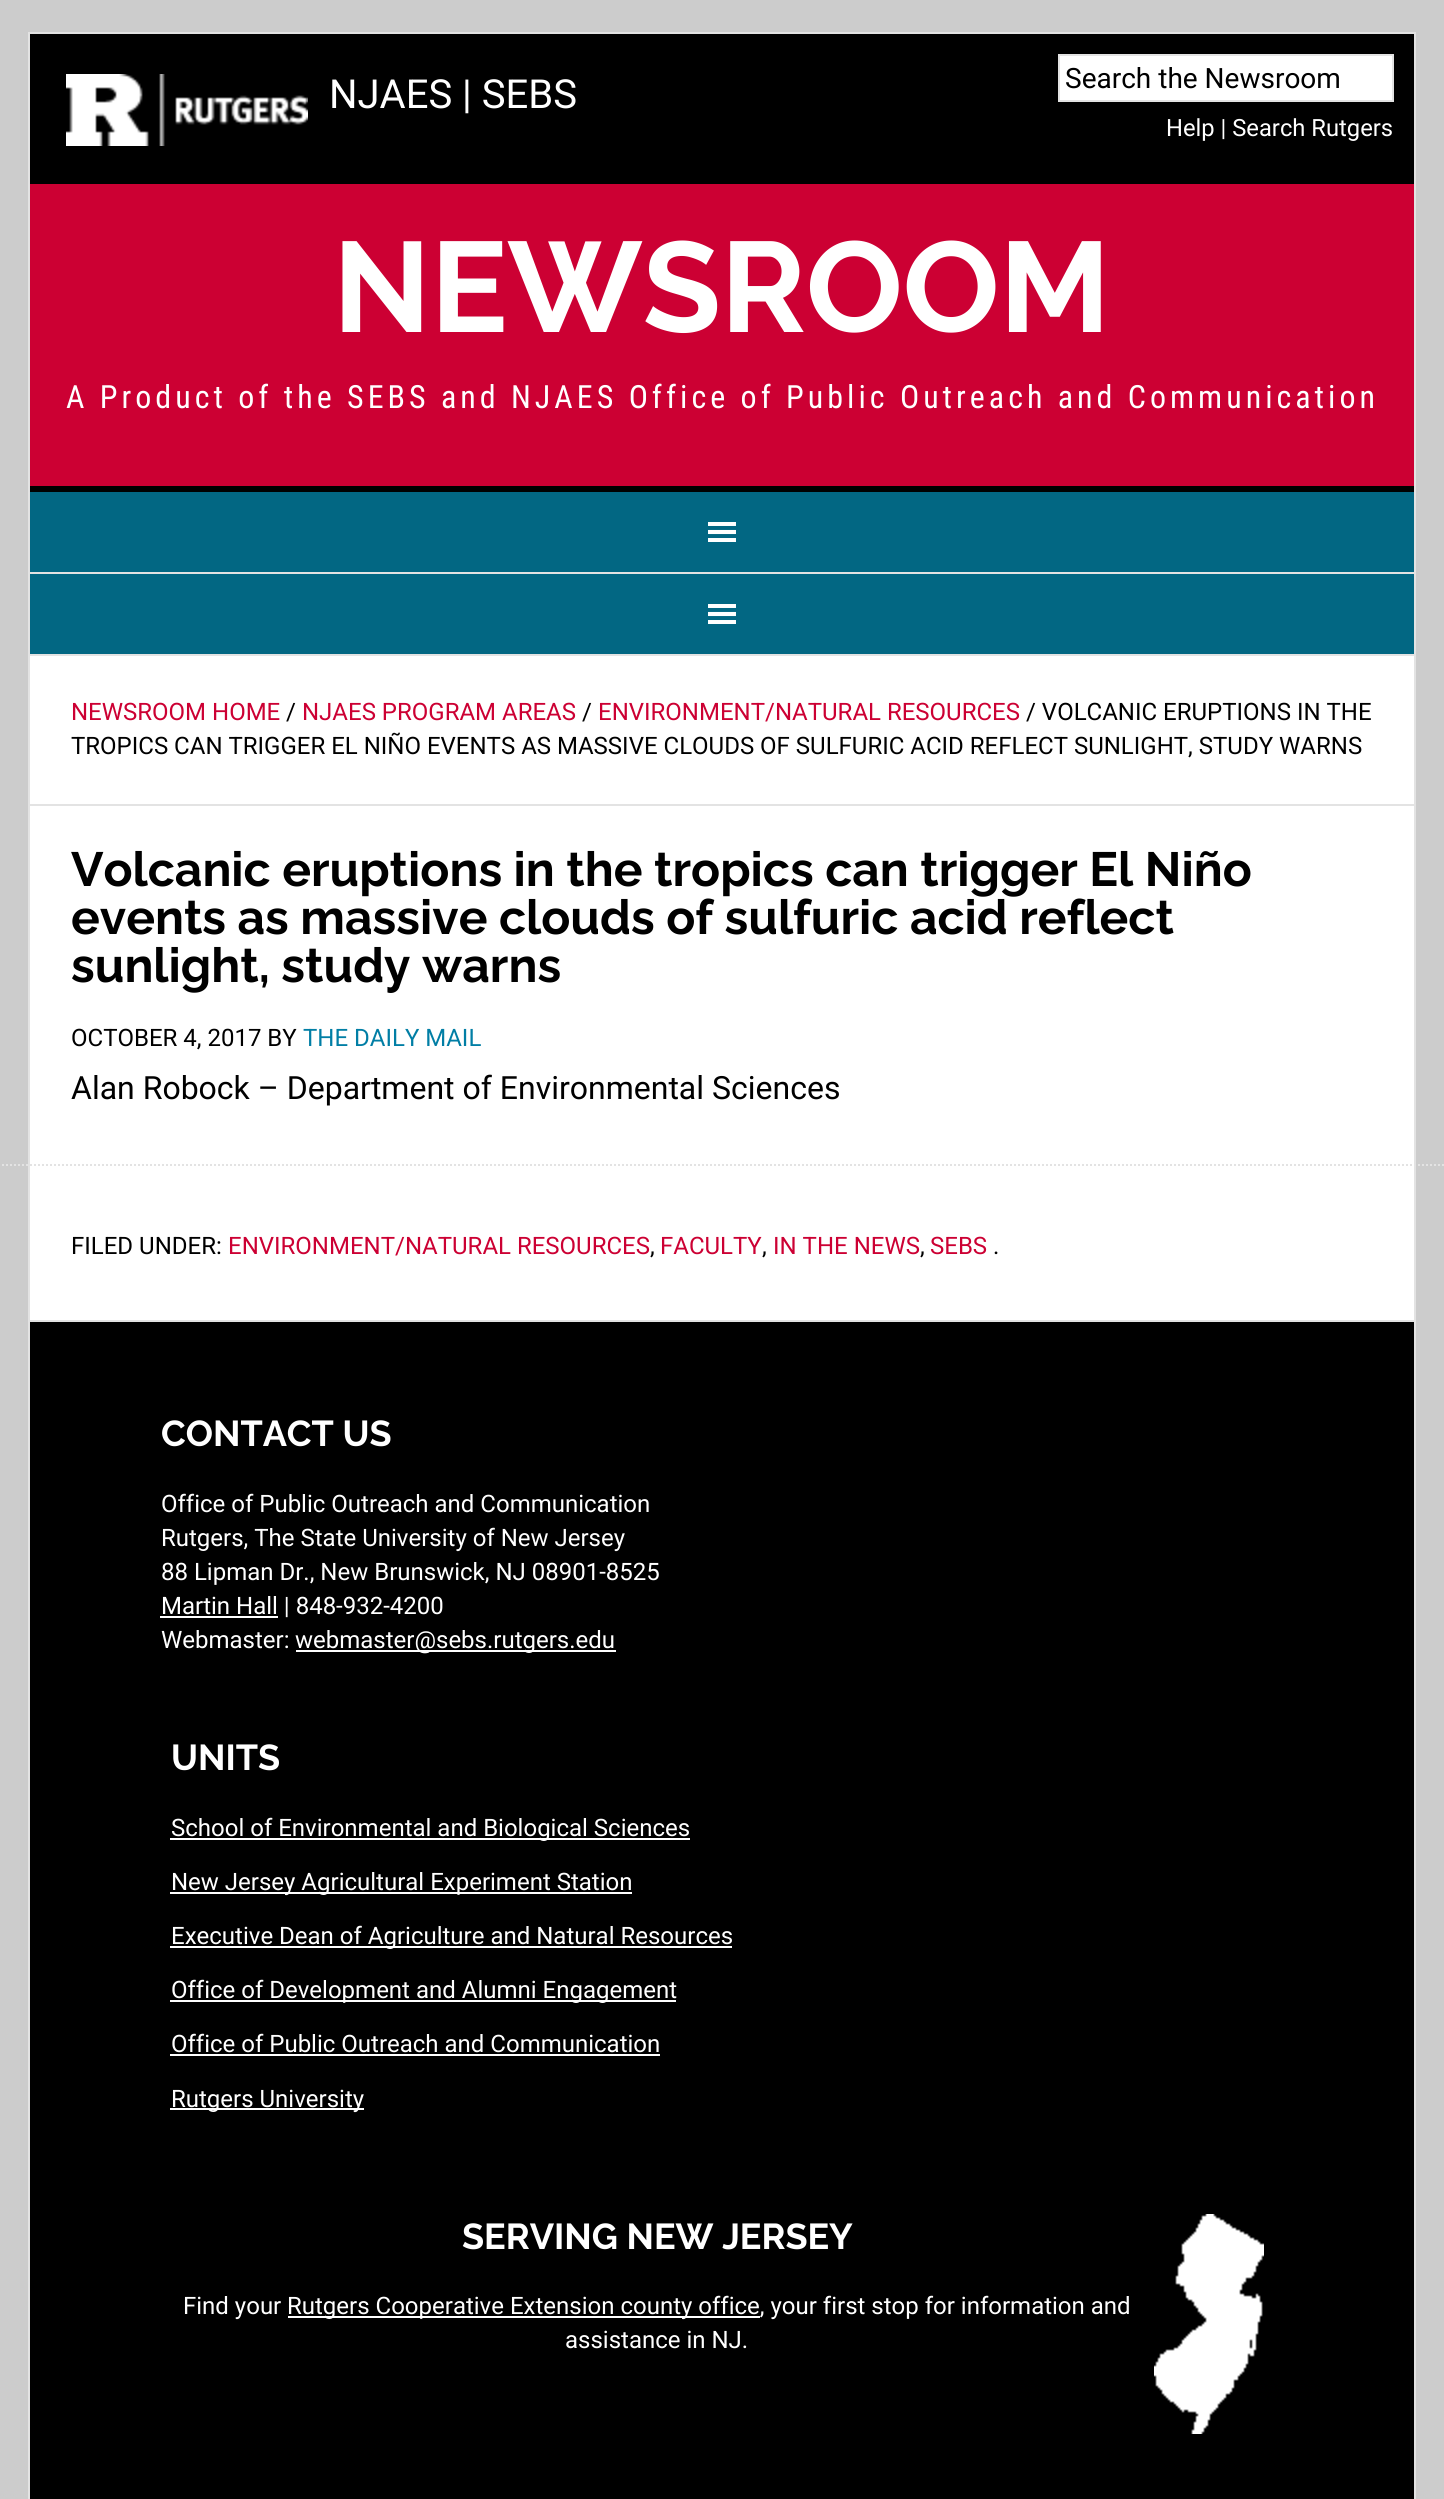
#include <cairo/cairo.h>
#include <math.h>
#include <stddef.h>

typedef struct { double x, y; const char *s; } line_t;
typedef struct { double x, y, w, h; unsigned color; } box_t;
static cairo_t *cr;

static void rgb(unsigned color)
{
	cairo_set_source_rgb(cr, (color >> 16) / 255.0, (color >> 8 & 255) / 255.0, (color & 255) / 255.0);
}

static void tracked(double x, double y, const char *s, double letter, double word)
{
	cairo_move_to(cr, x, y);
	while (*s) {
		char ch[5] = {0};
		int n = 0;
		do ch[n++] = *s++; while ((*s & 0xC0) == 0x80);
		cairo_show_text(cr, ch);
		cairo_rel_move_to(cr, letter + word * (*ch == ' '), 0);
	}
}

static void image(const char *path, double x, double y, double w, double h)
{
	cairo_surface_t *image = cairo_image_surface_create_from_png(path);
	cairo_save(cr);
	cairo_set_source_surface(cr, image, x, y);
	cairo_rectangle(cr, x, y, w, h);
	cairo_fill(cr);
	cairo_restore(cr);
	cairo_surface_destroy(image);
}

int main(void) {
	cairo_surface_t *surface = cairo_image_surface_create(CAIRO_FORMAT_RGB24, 1444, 2499);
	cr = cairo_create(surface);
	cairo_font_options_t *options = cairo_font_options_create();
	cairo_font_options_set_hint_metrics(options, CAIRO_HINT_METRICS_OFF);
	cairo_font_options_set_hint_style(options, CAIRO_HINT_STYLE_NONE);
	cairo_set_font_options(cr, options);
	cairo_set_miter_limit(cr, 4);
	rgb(0xcccccc);
	cairo_paint(cr);
	rgb(0xffffff);
	cairo_rectangle(cr, 30, 656, 1384, 664);
	cairo_fill(cr);
	cairo_rectangle(cr, 29, 33, 1386, 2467);
	rgb(0xe3e3e3);
	cairo_stroke(cr);
	rgb(0x000000);
	cairo_rectangle(cr, 30, 34, 1384, 150);
	cairo_fill(cr);
	image("img/1.png", 66, 74, 242, 72);
	rgb(0xffffff);
	cairo_rectangle(cr, 1059, 55, 334, 46);
	cairo_fill_preserve(cr);
	rgb(0xe3e3e3);
	cairo_stroke(cr);
	{
		static const box_t items[] = {
			{30, 184, 1384, 302, 0xcc0033},
			{30, 486, 1384, 6, 0x000000},
			{30, 492, 1384, 80, 0x026783},
			{30, 572, 1384, 2, 0xe3e3e3},
		};
		for (size_t i = 0; i < sizeof items / sizeof *items; i++) {
			rgb(items[i].color);
			cairo_rectangle(cr, items[i].x, items[i].y, items[i].w, items[i].h);
			cairo_fill(cr);
		}
	}
	image("img/2.png", 708, 522, 28, 20);
	rgb(0x026783);
	cairo_rectangle(cr, 30, 574, 1384, 80);
	cairo_fill(cr);
	rgb(0xe3e3e3);
	cairo_rectangle(cr, 30, 654, 1384, 2);
	cairo_fill(cr);
	image("img/2.png", 708, 604, 28, 20);
	cairo_rectangle(cr, 30, 804, 1384, 2);
	cairo_fill(cr);
	cairo_rectangle(cr, 30, 1320, 1384, 2);
	cairo_fill(cr);
	cairo_new_path(cr);
	cairo_move_to(cr, -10, 1165);
	cairo_line_to(cr, 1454, 1165);
	cairo_set_dash(cr, (double[]){2, 2}, 2, 0);
	cairo_stroke(cr);
	{
		static const box_t items[] = {
			{30, 1322, 1384, 1177, 0x000000},
			{160, 1616, 118, 2, 0xffffff},
			{296, 1650, 320, 2, 0xffffff},
			{170, 1838, 520, 2, 0xffffff},
			{170, 1892, 462, 2, 0xffffff},
			{170, 1946, 562, 2, 0xffffff},
			{170, 2000, 506, 2, 0xffffff},
			{170, 2054, 490, 2, 0xffffff},
			{170, 2108, 194, 2, 0xffffff},
		};
		for (size_t i = 0; i < sizeof items / sizeof *items; i++) {
			rgb(items[i].color);
			cairo_rectangle(cr, items[i].x, items[i].y, items[i].w, items[i].h);
			cairo_fill(cr);
		}
	}
	image("img/3.png", 1154, 2214, 110, 220);
	cairo_rectangle(cr, 288, 2316, 472, 2);
	cairo_fill(cr);
	cairo_select_font_face(cr, "Roboto", CAIRO_FONT_SLANT_NORMAL, CAIRO_FONT_WEIGHT_NORMAL);
	cairo_set_font_size(cr, 40);
	cairo_move_to(cr, 329, 108);
	cairo_show_text(cr, "NJAES | SEBS");
	cairo_set_font_size(cr, 28);
	rgb(0x000000);
	cairo_move_to(cr, 1065, 88);
	cairo_show_text(cr, "Search the Newsroom");
	cairo_set_font_size(cr, 23.75);
	rgb(0xffffff);
	cairo_move_to(cr, 1166, 136);
	cairo_show_text(cr, "Help | Search Rutgers");
	cairo_select_font_face(cr, "Raleway", CAIRO_FONT_SLANT_NORMAL, CAIRO_FONT_WEIGHT_BOLD);
	cairo_set_font_size(cr, 128);
	cairo_move_to(cr, 333, 332);
	cairo_show_text(cr, "NEWSROOM");
	cairo_select_font_face(cr, "Roboto Condensed", CAIRO_FONT_SLANT_NORMAL, CAIRO_FONT_WEIGHT_NORMAL);
	cairo_set_font_size(cr, 32);
	tracked(66, 408, "A Product of the SEBS and NJAES Office of Public Outreach and Communication", 4, 0);
	cairo_select_font_face(cr, "Roboto", CAIRO_FONT_SLANT_NORMAL, CAIRO_FONT_WEIGHT_NORMAL);
	cairo_set_font_size(cr, 24);
	rgb(0xcc0033);
	cairo_move_to(cr, 71, 720);
	cairo_show_text(cr, "NEWSROOM HOME");
	rgb(0x000000);
	cairo_move_to(cr, 286, 720);
	cairo_show_text(cr, "/");
	rgb(0xcc0033);
	cairo_move_to(cr, 302, 720);
	cairo_show_text(cr, "NJAES PROGRAM AREAS");
	rgb(0x000000);
	cairo_move_to(cr, 582, 720);
	cairo_show_text(cr, "/");
	rgb(0xcc0033);
	cairo_move_to(cr, 598, 720);
	cairo_show_text(cr, "ENVIRONMENT/NATURAL RESOURCES");
	rgb(0x000000);
	cairo_move_to(cr, 1026, 720);
	cairo_show_text(cr, "/ VOLCANIC ERUPTIONS IN THE");
	cairo_move_to(cr, 71, 754);
	cairo_show_text(cr, "TROPICS CAN TRIGGER EL NIÑO EVENTS AS MASSIVE CLOUDS OF SULFURIC ACID REFLECT SUNLIGHT, STUDY WARNS");
	cairo_select_font_face(cr, "Raleway", CAIRO_FONT_SLANT_NORMAL, CAIRO_FONT_WEIGHT_BOLD);
	cairo_set_font_size(cr, 48);
	{
		static const line_t items[] = {
			{71, 886, "Volcanic eruptions in the tropics can trigger El Niño"},
			{71, 934, "events as massive clouds of sulfuric acid reflect"},
			{71, 982, "sunlight, study warns"},
		};
		for (size_t i = 0; i < sizeof items / sizeof *items; i++) {
			cairo_move_to(cr, items[i].x, items[i].y);
			cairo_show_text(cr, items[i].s);
		}
	}
	cairo_select_font_face(cr, "Roboto", CAIRO_FONT_SLANT_NORMAL, CAIRO_FONT_WEIGHT_NORMAL);
	cairo_set_font_size(cr, 24);
	cairo_move_to(cr, 71, 1046);
	cairo_show_text(cr, "OCTOBER 4, 2017 BY");
	rgb(0x017ea5);
	cairo_move_to(cr, 303, 1046);
	cairo_show_text(cr, "THE DAILY MAIL");
	cairo_set_font_size(cr, 32);
	rgb(0x000000);
	cairo_move_to(cr, 71, 1099);
	cairo_show_text(cr, "Alan Robock – Department of Environmental Sciences");
	cairo_set_font_size(cr, 24);
	cairo_move_to(cr, 71, 1254);
	cairo_show_text(cr, "FILED UNDER:");
	rgb(0xcc0033);
	cairo_move_to(cr, 228, 1254);
	cairo_show_text(cr, "ENVIRONMENT/NATURAL RESOURCES");
	rgb(0x000000);
	cairo_move_to(cr, 650, 1254);
	cairo_show_text(cr, ",");
	rgb(0xcc0033);
	cairo_move_to(cr, 660, 1254);
	cairo_show_text(cr, "FACULTY");
	rgb(0x000000);
	cairo_move_to(cr, 762, 1254);
	cairo_show_text(cr, ",");
	rgb(0xcc0033);
	cairo_move_to(cr, 773, 1254);
	cairo_show_text(cr, "IN THE NEWS");
	rgb(0x000000);
	cairo_move_to(cr, 920, 1254);
	cairo_show_text(cr, ",");
	rgb(0xcc0033);
	cairo_move_to(cr, 930, 1254);
	cairo_show_text(cr, "SEBS");
	rgb(0x000000);
	cairo_move_to(cr, 993, 1254);
	cairo_show_text(cr, ".");
	cairo_select_font_face(cr, "Raleway", CAIRO_FONT_SLANT_NORMAL, CAIRO_FONT_WEIGHT_BOLD);
	cairo_set_font_size(cr, 36);
	rgb(0xffffff);
	cairo_move_to(cr, 161, 1446);
	cairo_show_text(cr, "CONTACT US");
	cairo_select_font_face(cr, "Roboto", CAIRO_FONT_SLANT_NORMAL, CAIRO_FONT_WEIGHT_NORMAL);
	cairo_set_font_size(cr, 24);
	{
		static const line_t items[] = {
			{161, 1512, "Office of Public Outreach and Communication"},
			{161, 1546, "Rutgers, The State University of New Jersey"},
			{161, 1580, "88 Lipman Dr., New Brunswick, NJ 08901-8525"},
			{161, 1614, "Martin Hall | 848-932-4200"},
			{161, 1648, "Webmaster:"},
			{295, 1648, "webmaster@sebs.rutgers.edu"},
		};
		for (size_t i = 0; i < sizeof items / sizeof *items; i++) {
			cairo_move_to(cr, items[i].x, items[i].y);
			cairo_show_text(cr, items[i].s);
		}
	}
	cairo_select_font_face(cr, "Raleway", CAIRO_FONT_SLANT_NORMAL, CAIRO_FONT_WEIGHT_BOLD);
	cairo_set_font_size(cr, 36);
	cairo_move_to(cr, 171, 1770);
	cairo_show_text(cr, "UNITS");
	cairo_select_font_face(cr, "Roboto", CAIRO_FONT_SLANT_NORMAL, CAIRO_FONT_WEIGHT_NORMAL);
	cairo_set_font_size(cr, 24);
	{
		static const line_t items[] = {
			{171, 1836, "School of Environmental and Biological Sciences"},
			{171, 1890, "New Jersey Agricultural Experiment Station"},
			{171, 1944, "Executive Dean of Agriculture and Natural Resources"},
			{171, 1998, "Office of Development and Alumni Engagement"},
			{171, 2052, "Office of Public Outreach and Communication"},
			{171, 2107, "Rutgers University"},
		};
		for (size_t i = 0; i < sizeof items / sizeof *items; i++) {
			cairo_move_to(cr, items[i].x, items[i].y);
			cairo_show_text(cr, items[i].s);
		}
	}
	cairo_select_font_face(cr, "Raleway", CAIRO_FONT_SLANT_NORMAL, CAIRO_FONT_WEIGHT_BOLD);
	cairo_set_font_size(cr, 36);
	cairo_move_to(cr, 462, 2249);
	cairo_show_text(cr, "SERVING NEW JERSEY");
	cairo_select_font_face(cr, "Roboto", CAIRO_FONT_SLANT_NORMAL, CAIRO_FONT_WEIGHT_NORMAL);
	cairo_set_font_size(cr, 24);
	{
		static const line_t items[] = {
			{183, 2314, "Find your"},
			{287, 2314, "Rutgers Cooperative Extension county office, your first stop for information and"},
			{565, 2348, "assistance in NJ."},
		};
		for (size_t i = 0; i < sizeof items / sizeof *items; i++) {
			cairo_move_to(cr, items[i].x, items[i].y);
			cairo_show_text(cr, items[i].s);
		}
	}
	cairo_surface_write_to_png(surface, "page.png");
	cairo_font_options_destroy(options);
	cairo_destroy(cr);
	cairo_surface_destroy(surface);
	return 0;
}
